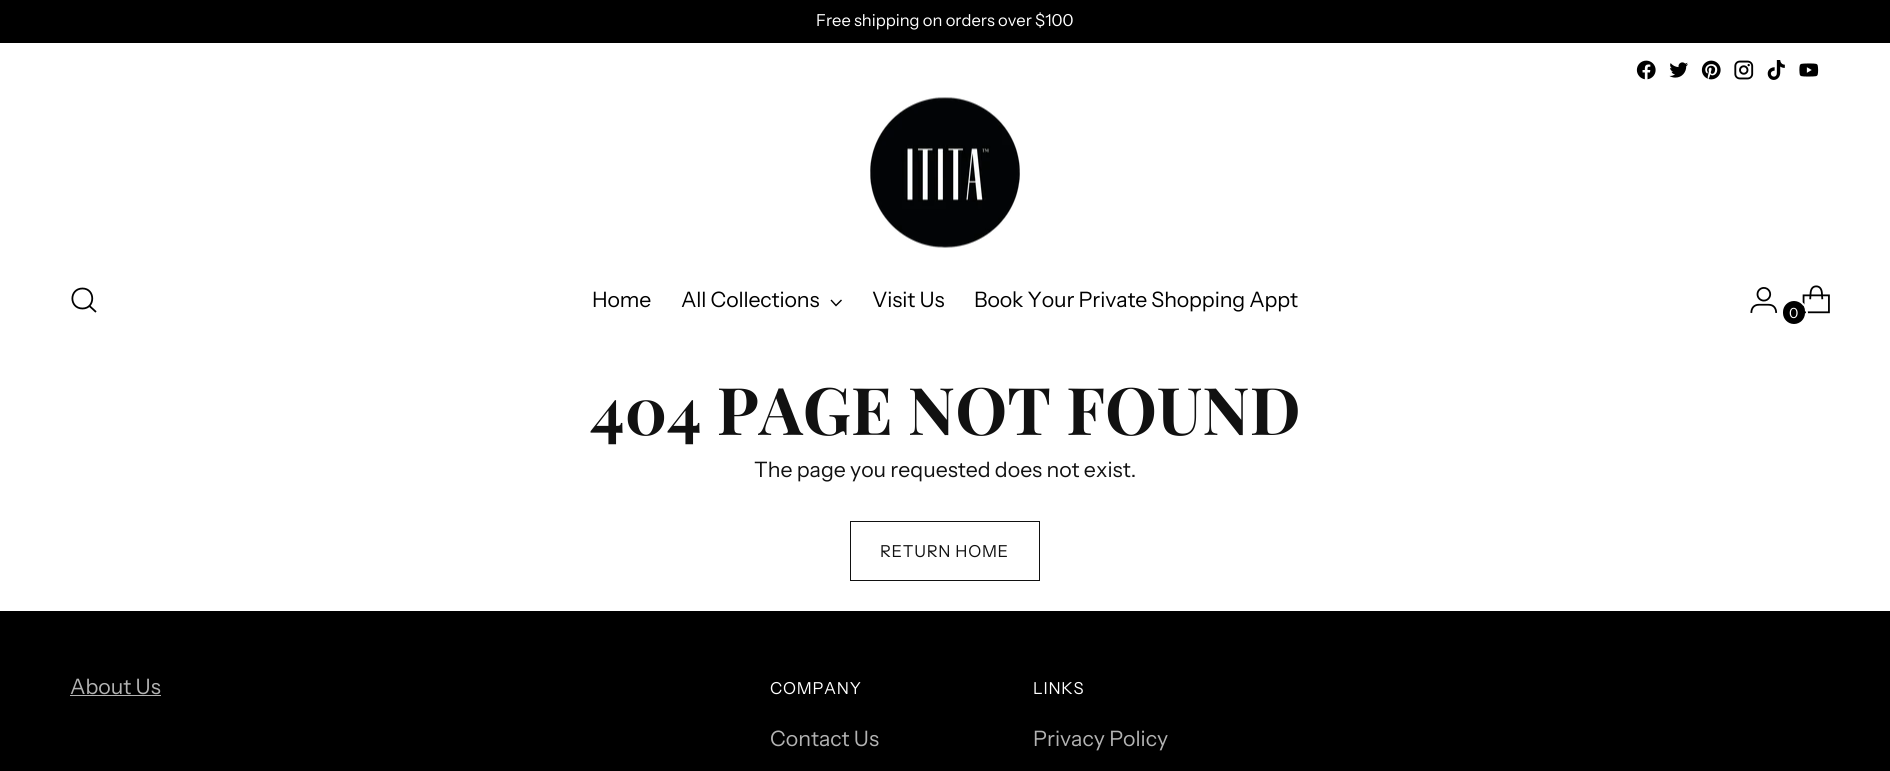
#include <cairo/cairo.h>
#include <math.h>
#include <stddef.h>

typedef struct { double x, y; const char *s; } line_t;
static cairo_t *cr;

static void rgb(unsigned color)
{
	cairo_set_source_rgb(cr, (color >> 16) / 255.0, (color >> 8 & 255) / 255.0, (color & 255) / 255.0);
}

static void tracked(double x, double y, const char *s, double letter, double word)
{
	cairo_move_to(cr, x, y);
	while (*s) {
		char ch[5] = {0};
		int n = 0;
		do ch[n++] = *s++; while ((*s & 0xC0) == 0x80);
		cairo_show_text(cr, ch);
		cairo_rel_move_to(cr, letter + word * (*ch == ' '), 0);
	}
}

static void rrect(double x, double y, double w, double h, double r)
{
	cairo_new_sub_path(cr);
	cairo_arc(cr, x + w - r, y + h - r, r, 0, M_PI / 2);
	cairo_arc(cr, x + r, y + h - r, r, M_PI / 2, M_PI);
	cairo_arc(cr, x + r, y + r, r, M_PI, 1.5 * M_PI);
	cairo_arc(cr, x + w - r, y + r, r, 1.5 * M_PI, 2 * M_PI);
	cairo_close_path(cr);
}

static void image(const char *path, double x, double y, double w, double h)
{
	cairo_surface_t *image = cairo_image_surface_create_from_png(path);
	cairo_save(cr);
	cairo_set_source_surface(cr, image, x, y);
	cairo_rectangle(cr, x, y, w, h);
	cairo_fill(cr);
	cairo_restore(cr);
	cairo_surface_destroy(image);
}

int main(void) {
	cairo_surface_t *surface = cairo_image_surface_create(CAIRO_FORMAT_RGB24, 1890, 771);
	cr = cairo_create(surface);
	cairo_font_options_t *options = cairo_font_options_create();
	cairo_font_options_set_hint_metrics(options, CAIRO_HINT_METRICS_OFF);
	cairo_font_options_set_hint_style(options, CAIRO_HINT_STYLE_NONE);
	cairo_set_font_options(cr, options);
	cairo_set_miter_limit(cr, 4);
	rgb(0xffffff);
	cairo_paint(cr);
	rgb(0x000000);
	cairo_rectangle(cr, 0, 0, 1890, 43);
	cairo_fill(cr);
	image("img/1.png", 1636, 60, 20, 20);
	image("img/2.png", 1669, 62, 19, 16);
	image("img/3.png", 1701, 60, 20, 20);
	image("img/4.png", 1734, 60, 20, 20);
	image("img/5.png", 1767, 60, 18, 20);
	image("img/6.png", 1799, 63, 20, 14);
	image("img/7.png", 870, 97, 150, 151);
	cairo_new_path(cr);
	cairo_move_to(cr, 82.5, 308.5);
	cairo_curve_to(cr, 95.5, 308.5, 95.5, 288.5, 82.5, 288.5);
	cairo_curve_to(cr, 69, 288.5, 69, 308.5, 82.5, 308.5);
	cairo_close_path(cr);
	cairo_set_line_width(cr, 1.8);
	cairo_set_line_cap(cr, CAIRO_LINE_CAP_ROUND);
	cairo_stroke(cr);
	cairo_new_path(cr);
	cairo_move_to(cr, 89.5, 306);
	cairo_line_to(cr, 96, 312);
	cairo_set_line_cap(cr, CAIRO_LINE_CAP_BUTT);
	cairo_stroke(cr);
	cairo_new_path(cr);
	cairo_move_to(cr, 831, 300);
	cairo_line_to(cr, 836, 305.5);
	cairo_line_to(cr, 841.5, 300);
	cairo_set_line_width(cr, 1.4);
	cairo_stroke(cr);
	image("img/8.png", 1750, 287, 28, 26);
	image("img/9.png", 1802, 285, 28, 29);
	rrect(1782, 301, 25, 24, 12);
	rgb(0xffffff);
	cairo_set_line_width(cr, 2);
	cairo_stroke(cr);
	rgb(0x000000);
	rrect(1783, 301, 22, 23, 11);
	cairo_fill(cr);
	cairo_rectangle(cr, 850.5, 521.5, 189, 59);
	rgb(0x111111);
	cairo_set_line_width(cr, 1);
	cairo_stroke(cr);
	rgb(0x000000);
	cairo_rectangle(cr, 0, 611, 1890, 160);
	cairo_fill(cr);
	rgb(0xb3b3b3);
	cairo_rectangle(cr, 70, 695, 91, 1);
	cairo_fill(cr);
	cairo_select_font_face(cr, "Instrument Sans", CAIRO_FONT_SLANT_NORMAL, CAIRO_FONT_WEIGHT_NORMAL);
	cairo_set_font_size(cr, 16.5);
	rgb(0xffffff);
	cairo_move_to(cr, 816, 26);
	cairo_show_text(cr, "Free shipping on orders over $100");
	cairo_set_font_size(cr, 21.25);
	rgb(0x000000);
	{
		static const line_t items[] = {
			{592, 307, "Home"},
			{681, 307, "All Collections"},
			{872, 307, "Visit Us"},
			{974, 307, "Book Your Private Shopping Appt"},
		};
		for (size_t i = 0; i < sizeof items / sizeof *items; i++) {
			tracked(items[i].x, items[i].y, items[i].s, -0.1, 0);
		}
	}
	cairo_set_font_size(cr, 14);
	rgb(0xffffff);
	cairo_move_to(cr, 1789, 318);
	cairo_show_text(cr, "0");
	cairo_select_font_face(cr, "Playfair Display", CAIRO_FONT_SLANT_NORMAL, CAIRO_FONT_WEIGHT_BOLD);
	cairo_set_font_size(cr, 65.6);
	rgb(0x111111);
	cairo_move_to(cr, 590, 435);
	cairo_show_text(cr, "404 PAGE NOT FOUND");
	cairo_select_font_face(cr, "Instrument Sans", CAIRO_FONT_SLANT_NORMAL, CAIRO_FONT_WEIGHT_NORMAL);
	cairo_set_font_size(cr, 21.25);
	cairo_move_to(cr, 754, 477);
	cairo_show_text(cr, "The page you requested does not exist.");
	cairo_set_font_size(cr, 16.5);
	tracked(880, 557, "RETURN HOME", 0.75, 0);
	cairo_set_font_size(cr, 21.25);
	rgb(0xb3b3b3);
	cairo_move_to(cr, 70, 694);
	cairo_show_text(cr, "About Us");
	cairo_set_font_size(cr, 16.5);
	rgb(0xffffff);
	tracked(770, 694, "COMPANY", 0.75, 0);
	cairo_set_font_size(cr, 21.25);
	rgb(0xb3b3b3);
	cairo_move_to(cr, 770, 746);
	cairo_show_text(cr, "Contact Us");
	cairo_set_font_size(cr, 16.5);
	rgb(0xffffff);
	tracked(1033, 694, "LINKS", 0.75, 0);
	cairo_set_font_size(cr, 21.25);
	rgb(0xb3b3b3);
	cairo_move_to(cr, 1033, 746);
	cairo_show_text(cr, "Privacy Policy");
	cairo_surface_write_to_png(surface, "page.png");
	cairo_font_options_destroy(options);
	cairo_destroy(cr);
	cairo_surface_destroy(surface);
	return 0;
}
